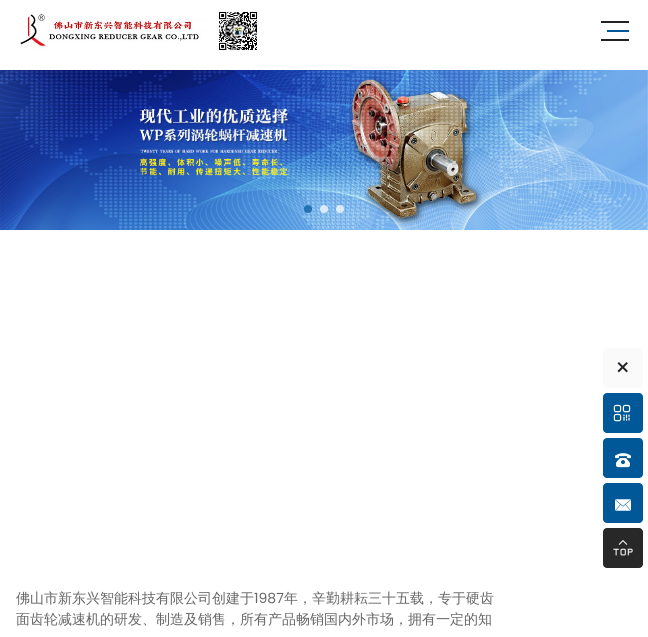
#include <cairo/cairo.h>
#include <math.h>
#include <stddef.h>

typedef struct { double x, y, w, h; unsigned color; } box_t;
static cairo_t *cr;

static void rgb(unsigned color)
{
	cairo_set_source_rgb(cr, (color >> 16) / 255.0, (color >> 8 & 255) / 255.0, (color & 255) / 255.0);
}

static void rrect(double x, double y, double w, double h, double r)
{
	cairo_new_sub_path(cr);
	cairo_arc(cr, x + w - r, y + h - r, r, 0, M_PI / 2);
	cairo_arc(cr, x + r, y + h - r, r, M_PI / 2, M_PI);
	cairo_arc(cr, x + r, y + r, r, M_PI, 1.5 * M_PI);
	cairo_arc(cr, x + w - r, y + r, r, 1.5 * M_PI, 2 * M_PI);
	cairo_close_path(cr);
}

static void image(const char *path, double x, double y, double w, double h)
{
	cairo_surface_t *image = cairo_image_surface_create_from_png(path);
	cairo_save(cr);
	cairo_set_source_surface(cr, image, x, y);
	cairo_rectangle(cr, x, y, w, h);
	cairo_fill(cr);
	cairo_restore(cr);
	cairo_surface_destroy(image);
}

int main(void) {
	cairo_surface_t *surface = cairo_image_surface_create(CAIRO_FORMAT_RGB24, 648, 637);
	cr = cairo_create(surface);
	cairo_font_options_t *options = cairo_font_options_create();
	cairo_font_options_set_hint_metrics(options, CAIRO_HINT_METRICS_OFF);
	cairo_font_options_set_hint_style(options, CAIRO_HINT_STYLE_NONE);
	cairo_set_font_options(cr, options);
	cairo_set_miter_limit(cr, 4);
	rgb(0xffffff);
	cairo_paint(cr);
	image("img/1.png", 20, 11, 238, 40);
	{
		static const box_t items[] = {
			{601, 21, 28, 2, 0x222222},
			{607, 30, 22, 2, 0x005899},
			{601, 39, 28, 2, 0x222222},
		};
		for (size_t i = 0; i < sizeof items / sizeof *items; i++) {
			rgb(items[i].color);
			cairo_rectangle(cr, items[i].x, items[i].y, items[i].w, items[i].h);
			cairo_fill(cr);
		}
	}
	image("img/2.png", 0, 70, 648, 160);
	cairo_set_source_rgba(cr, 0, 0.345, 0.6, 0.7);
	cairo_arc(cr, 308, 209, 4, 0, 2 * M_PI);
	cairo_fill(cr);
	cairo_set_source_rgba(cr, 1, 1, 1, 0.7);
	cairo_arc(cr, 324, 209, 4, 0, 2 * M_PI);
	cairo_fill(cr);
	cairo_arc(cr, 340, 209, 4, 0, 2 * M_PI);
	cairo_fill(cr);
	rgb(0xfafafa);
	rrect(603, 348, 40, 40, 4);
	cairo_fill(cr);
	rgb(0x005899);
	rrect(603, 393, 40, 40, 4);
	cairo_fill(cr);
	image("img/3.png", 613, 404, 18, 18);
	rrect(603, 438, 40, 40, 4);
	cairo_fill(cr);
	image("img/4.png", 615, 453, 16, 15);
	rrect(603, 483, 40, 40, 4);
	cairo_fill(cr);
	image("img/5.png", 615, 499, 16, 12);
	rgb(0x282828);
	rrect(603, 528, 40, 40, 4);
	cairo_fill(cr);
	image("img/6.png", 613, 540, 20, 16);
	cairo_select_font_face(cr, "Poppins", CAIRO_FONT_SLANT_NORMAL, CAIRO_FONT_WEIGHT_NORMAL);
	cairo_set_font_size(cr, 24);
	rgb(0x212529);
	cairo_move_to(cr, 615, 376);
	cairo_show_text(cr, "×");
	cairo_select_font_face(cr, "WenQuanYi Zen Hei Medium", CAIRO_FONT_SLANT_NORMAL, CAIRO_FONT_WEIGHT_NORMAL);
	cairo_set_font_size(cr, 14);
	rgb(0x666666);
	cairo_move_to(cr, 16, 603);
	cairo_show_text(cr, "佛山市新东兴智能科技有限公司创建于");
	cairo_select_font_face(cr, "Poppins", CAIRO_FONT_SLANT_NORMAL, CAIRO_FONT_WEIGHT_NORMAL);
	cairo_move_to(cr, 254, 603);
	cairo_show_text(cr, "1987");
	cairo_select_font_face(cr, "WenQuanYi Zen Hei Medium", CAIRO_FONT_SLANT_NORMAL, CAIRO_FONT_WEIGHT_NORMAL);
	cairo_move_to(cr, 284, 603);
	cairo_show_text(cr, "年，辛勤耕耘三十五载，专于硬齿");
	cairo_move_to(cr, 16, 624);
	cairo_show_text(cr, "面齿轮减速机的研发、制造及销售，所有产品畅销国内外市场，拥有一定的知");
	cairo_surface_write_to_png(surface, "page.png");
	cairo_font_options_destroy(options);
	cairo_destroy(cr);
	cairo_surface_destroy(surface);
	return 0;
}
